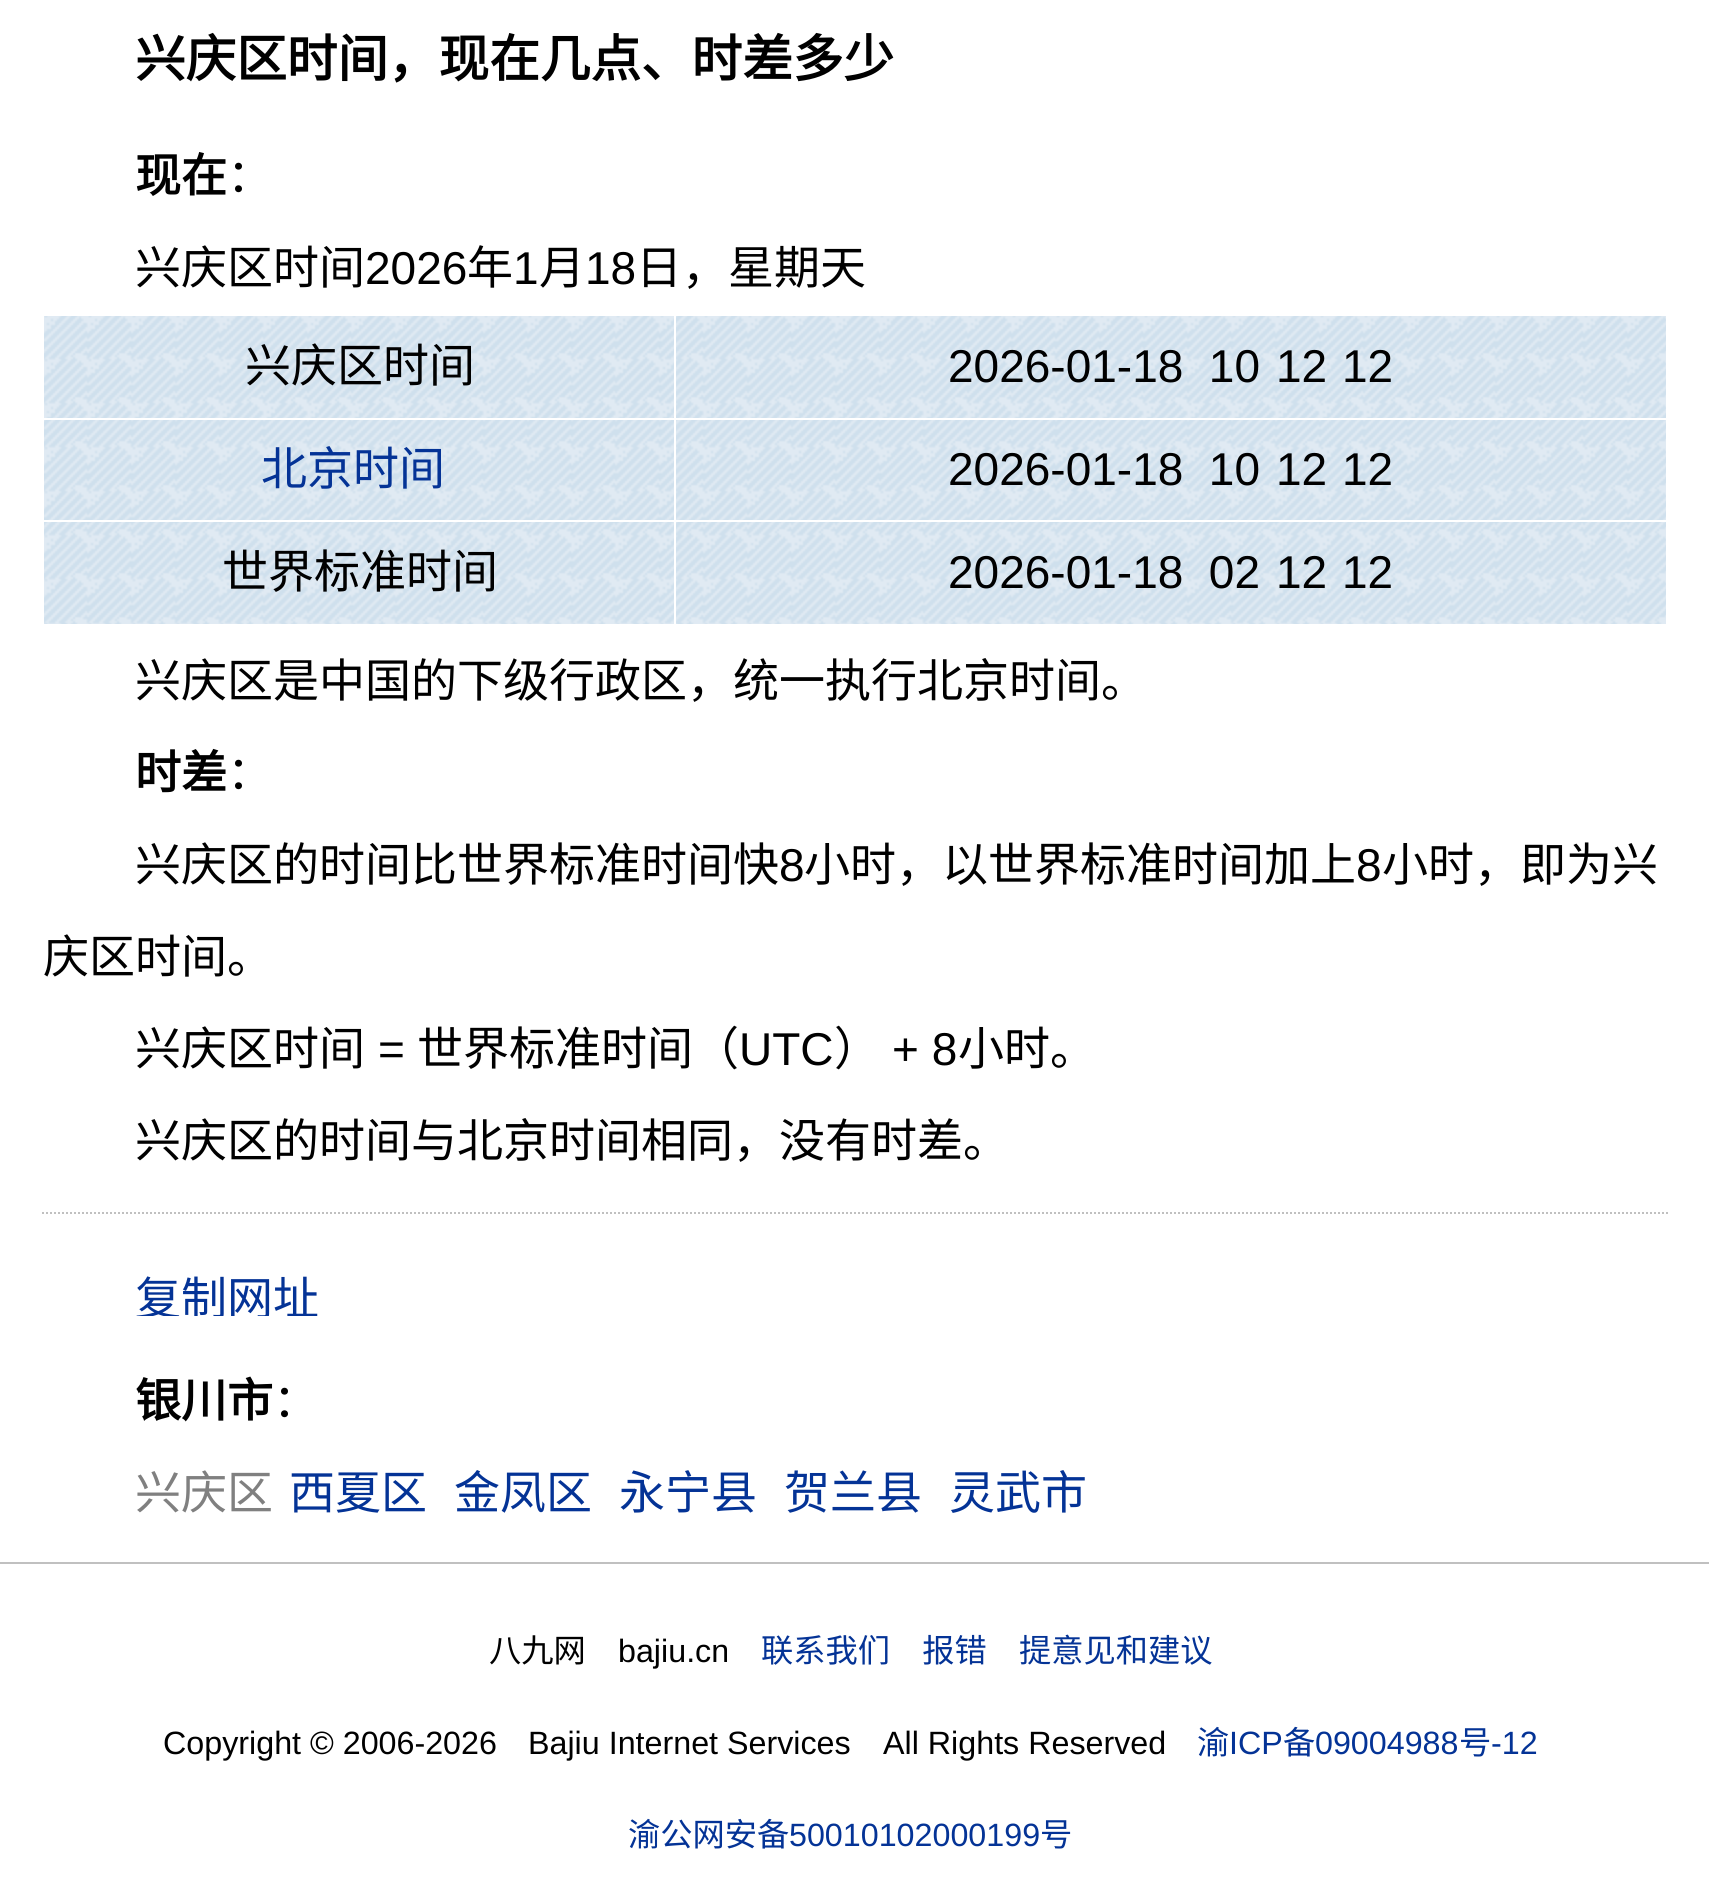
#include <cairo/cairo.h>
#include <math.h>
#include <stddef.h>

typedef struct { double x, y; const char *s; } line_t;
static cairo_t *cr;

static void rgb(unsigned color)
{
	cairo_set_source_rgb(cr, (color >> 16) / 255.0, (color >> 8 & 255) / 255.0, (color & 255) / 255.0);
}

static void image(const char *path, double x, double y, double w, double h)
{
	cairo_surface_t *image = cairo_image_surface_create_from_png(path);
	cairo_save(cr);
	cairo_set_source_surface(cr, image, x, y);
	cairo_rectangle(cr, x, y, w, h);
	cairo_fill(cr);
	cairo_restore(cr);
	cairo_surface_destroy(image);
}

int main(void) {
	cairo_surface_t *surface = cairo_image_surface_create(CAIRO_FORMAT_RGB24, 1709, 1899);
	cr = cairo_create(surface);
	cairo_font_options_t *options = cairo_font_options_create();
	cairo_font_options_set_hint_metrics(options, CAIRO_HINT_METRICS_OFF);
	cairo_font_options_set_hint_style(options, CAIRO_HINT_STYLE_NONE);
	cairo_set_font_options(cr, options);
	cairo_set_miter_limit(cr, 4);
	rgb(0xffffff);
	cairo_paint(cr);
	image("img/1.png", 44, 316, 1622, 308);
	cairo_new_path(cr);
	cairo_move_to(cr, 42, 1213);
	cairo_line_to(cr, 1668, 1213);
	rgb(0xc0c0c0);
	cairo_set_dash(cr, (double[]){2, 2}, 2, 0);
	cairo_stroke(cr);
	cairo_rectangle(cr, 0, 1562, 1709, 2);
	cairo_fill(cr);
	cairo_select_font_face(cr, "Noto Sans CJK SC", CAIRO_FONT_SLANT_NORMAL, CAIRO_FONT_WEIGHT_BOLD);
	cairo_set_font_size(cr, 50.6);
	rgb(0x000000);
	cairo_move_to(cr, 135, 77);
	cairo_show_text(cr, "兴庆区时间，现在几点、时差多少");
	cairo_set_font_size(cr, 46);
	cairo_move_to(cr, 135, 192);
	cairo_show_text(cr, "现在");
	cairo_select_font_face(cr, "Noto Sans CJK SC", CAIRO_FONT_SLANT_NORMAL, CAIRO_FONT_WEIGHT_NORMAL);
	cairo_move_to(cr, 227, 192);
	cairo_show_text(cr, "：");
	cairo_move_to(cr, 135, 284);
	cairo_show_text(cr, "兴庆区时间");
	cairo_select_font_face(cr, "Liberation Sans", CAIRO_FONT_SLANT_NORMAL, CAIRO_FONT_WEIGHT_NORMAL);
	cairo_move_to(cr, 365, 284);
	cairo_show_text(cr, "2026");
	cairo_select_font_face(cr, "Noto Sans CJK SC", CAIRO_FONT_SLANT_NORMAL, CAIRO_FONT_WEIGHT_NORMAL);
	cairo_move_to(cr, 467, 284);
	cairo_show_text(cr, "年");
	cairo_select_font_face(cr, "Liberation Sans", CAIRO_FONT_SLANT_NORMAL, CAIRO_FONT_WEIGHT_NORMAL);
	cairo_move_to(cr, 513, 284);
	cairo_show_text(cr, "1");
	cairo_select_font_face(cr, "Noto Sans CJK SC", CAIRO_FONT_SLANT_NORMAL, CAIRO_FONT_WEIGHT_NORMAL);
	cairo_move_to(cr, 539, 284);
	cairo_show_text(cr, "月");
	cairo_select_font_face(cr, "Liberation Sans", CAIRO_FONT_SLANT_NORMAL, CAIRO_FONT_WEIGHT_NORMAL);
	cairo_move_to(cr, 585, 284);
	cairo_show_text(cr, "18");
	cairo_select_font_face(cr, "Noto Sans CJK SC", CAIRO_FONT_SLANT_NORMAL, CAIRO_FONT_WEIGHT_NORMAL);
	cairo_move_to(cr, 636, 284);
	cairo_show_text(cr, "日，星期天");
	cairo_move_to(cr, 245, 382);
	cairo_show_text(cr, "兴庆区时间");
	cairo_select_font_face(cr, "Liberation Sans", CAIRO_FONT_SLANT_NORMAL, CAIRO_FONT_WEIGHT_NORMAL);
	{
		static const line_t items[] = {
			{948, 382, "2026-01-18  10"},
			{1276, 382, "12"},
			{1342, 382, "12"},
		};
		for (size_t i = 0; i < sizeof items / sizeof *items; i++) {
			cairo_move_to(cr, items[i].x, items[i].y);
			cairo_show_text(cr, items[i].s);
		}
	}
	cairo_select_font_face(cr, "Noto Sans CJK SC", CAIRO_FONT_SLANT_NORMAL, CAIRO_FONT_WEIGHT_NORMAL);
	rgb(0x043396);
	cairo_move_to(cr, 261, 485);
	cairo_show_text(cr, "北京时间");
	cairo_select_font_face(cr, "Liberation Sans", CAIRO_FONT_SLANT_NORMAL, CAIRO_FONT_WEIGHT_NORMAL);
	rgb(0x000000);
	{
		static const line_t items[] = {
			{948, 485, "2026-01-18  10"},
			{1276, 485, "12"},
			{1342, 485, "12"},
		};
		for (size_t i = 0; i < sizeof items / sizeof *items; i++) {
			cairo_move_to(cr, items[i].x, items[i].y);
			cairo_show_text(cr, items[i].s);
		}
	}
	cairo_select_font_face(cr, "Noto Sans CJK SC", CAIRO_FONT_SLANT_NORMAL, CAIRO_FONT_WEIGHT_NORMAL);
	cairo_move_to(cr, 222, 588);
	cairo_show_text(cr, "世界标准时间");
	cairo_select_font_face(cr, "Liberation Sans", CAIRO_FONT_SLANT_NORMAL, CAIRO_FONT_WEIGHT_NORMAL);
	{
		static const line_t items[] = {
			{948, 588, "2026-01-18  02"},
			{1276, 588, "12"},
			{1342, 588, "12"},
		};
		for (size_t i = 0; i < sizeof items / sizeof *items; i++) {
			cairo_move_to(cr, items[i].x, items[i].y);
			cairo_show_text(cr, items[i].s);
		}
	}
	cairo_select_font_face(cr, "Noto Sans CJK SC", CAIRO_FONT_SLANT_NORMAL, CAIRO_FONT_WEIGHT_NORMAL);
	cairo_move_to(cr, 135, 697);
	cairo_show_text(cr, "兴庆区是中国的下级行政区，统一执行北京时间。");
	cairo_select_font_face(cr, "Noto Sans CJK SC", CAIRO_FONT_SLANT_NORMAL, CAIRO_FONT_WEIGHT_BOLD);
	cairo_move_to(cr, 135, 789);
	cairo_show_text(cr, "时差");
	cairo_select_font_face(cr, "Noto Sans CJK SC", CAIRO_FONT_SLANT_NORMAL, CAIRO_FONT_WEIGHT_NORMAL);
	cairo_move_to(cr, 227, 789);
	cairo_show_text(cr, "：");
	cairo_move_to(cr, 135, 881);
	cairo_show_text(cr, "兴庆区的时间比世界标准时间快");
	cairo_select_font_face(cr, "Liberation Sans", CAIRO_FONT_SLANT_NORMAL, CAIRO_FONT_WEIGHT_NORMAL);
	cairo_move_to(cr, 779, 881);
	cairo_show_text(cr, "8");
	cairo_select_font_face(cr, "Noto Sans CJK SC", CAIRO_FONT_SLANT_NORMAL, CAIRO_FONT_WEIGHT_NORMAL);
	cairo_move_to(cr, 804, 881);
	cairo_show_text(cr, "小时，以世界标准时间加上");
	cairo_select_font_face(cr, "Liberation Sans", CAIRO_FONT_SLANT_NORMAL, CAIRO_FONT_WEIGHT_NORMAL);
	cairo_move_to(cr, 1356, 881);
	cairo_show_text(cr, "8");
	cairo_select_font_face(cr, "Noto Sans CJK SC", CAIRO_FONT_SLANT_NORMAL, CAIRO_FONT_WEIGHT_NORMAL);
	{
		static const line_t items[] = {
			{1382, 881, "小时，即为兴"},
			{43, 973, "庆区时间。"},
			{135, 1065, "兴庆区时间"},
		};
		for (size_t i = 0; i < sizeof items / sizeof *items; i++) {
			cairo_move_to(cr, items[i].x, items[i].y);
			cairo_show_text(cr, items[i].s);
		}
	}
	cairo_select_font_face(cr, "Liberation Sans", CAIRO_FONT_SLANT_NORMAL, CAIRO_FONT_WEIGHT_NORMAL);
	cairo_move_to(cr, 378, 1065);
	cairo_show_text(cr, "=");
	cairo_select_font_face(cr, "Noto Sans CJK SC", CAIRO_FONT_SLANT_NORMAL, CAIRO_FONT_WEIGHT_NORMAL);
	cairo_move_to(cr, 417, 1065);
	cairo_show_text(cr, "世界标准时间（");
	cairo_select_font_face(cr, "Liberation Sans", CAIRO_FONT_SLANT_NORMAL, CAIRO_FONT_WEIGHT_NORMAL);
	cairo_move_to(cr, 739, 1065);
	cairo_show_text(cr, "UTC");
	cairo_select_font_face(cr, "Noto Sans CJK SC", CAIRO_FONT_SLANT_NORMAL, CAIRO_FONT_WEIGHT_NORMAL);
	cairo_move_to(cr, 834, 1065);
	cairo_show_text(cr, "）");
	cairo_select_font_face(cr, "Liberation Sans", CAIRO_FONT_SLANT_NORMAL, CAIRO_FONT_WEIGHT_NORMAL);
	cairo_move_to(cr, 892, 1065);
	cairo_show_text(cr, "+ 8");
	cairo_select_font_face(cr, "Noto Sans CJK SC", CAIRO_FONT_SLANT_NORMAL, CAIRO_FONT_WEIGHT_NORMAL);
	cairo_move_to(cr, 958, 1065);
	cairo_show_text(cr, "小时。");
	cairo_move_to(cr, 135, 1157);
	cairo_show_text(cr, "兴庆区的时间与北京时间相同，没有时差。");
	cairo_save(cr);
	cairo_rectangle(cr, 134, 1262, 212, 54);
	cairo_clip(cr);
	rgb(0x043396);
	cairo_move_to(cr, 135, 1315);
	cairo_show_text(cr, "复制网址");
	cairo_restore(cr);
	cairo_select_font_face(cr, "Noto Sans CJK SC", CAIRO_FONT_SLANT_NORMAL, CAIRO_FONT_WEIGHT_BOLD);
	cairo_move_to(cr, 135, 1417);
	cairo_show_text(cr, "银川市");
	cairo_select_font_face(cr, "Noto Sans CJK SC", CAIRO_FONT_SLANT_NORMAL, CAIRO_FONT_WEIGHT_NORMAL);
	cairo_move_to(cr, 273, 1417);
	cairo_show_text(cr, "：");
	rgb(0x808080);
	cairo_move_to(cr, 135, 1509);
	cairo_show_text(cr, "兴庆区");
	rgb(0x043396);
	{
		static const line_t items[] = {
			{289, 1509, "西夏区"},
			{454, 1509, "金凤区"},
			{619, 1509, "永宁县"},
			{784, 1509, "贺兰县"},
			{949, 1509, "灵武市"},
		};
		for (size_t i = 0; i < sizeof items / sizeof *items; i++) {
			cairo_move_to(cr, items[i].x, items[i].y);
			cairo_show_text(cr, items[i].s);
		}
	}
	cairo_set_font_size(cr, 32.25);
	rgb(0x000000);
	cairo_move_to(cr, 489, 1662);
	cairo_show_text(cr, "八九网");
	cairo_select_font_face(cr, "Liberation Sans", CAIRO_FONT_SLANT_NORMAL, CAIRO_FONT_WEIGHT_NORMAL);
	cairo_move_to(cr, 618, 1662);
	cairo_show_text(cr, "bajiu.cn");
	cairo_select_font_face(cr, "Noto Sans CJK SC", CAIRO_FONT_SLANT_NORMAL, CAIRO_FONT_WEIGHT_NORMAL);
	rgb(0x043396);
	cairo_move_to(cr, 761, 1662);
	cairo_show_text(cr, "联系我们　报错　提意见和建议");
	cairo_select_font_face(cr, "Liberation Sans", CAIRO_FONT_SLANT_NORMAL, CAIRO_FONT_WEIGHT_NORMAL);
	rgb(0x000000);
	{
		static const line_t items[] = {
			{163, 1754, "Copyright © 2006-2026"},
			{528, 1754, "Bajiu Internet Services"},
			{883, 1754, "All Rights Reserved"},
		};
		for (size_t i = 0; i < sizeof items / sizeof *items; i++) {
			cairo_move_to(cr, items[i].x, items[i].y);
			cairo_show_text(cr, items[i].s);
		}
	}
	cairo_select_font_face(cr, "Noto Sans CJK SC", CAIRO_FONT_SLANT_NORMAL, CAIRO_FONT_WEIGHT_NORMAL);
	rgb(0x043396);
	cairo_move_to(cr, 1197, 1754);
	cairo_show_text(cr, "渝");
	cairo_select_font_face(cr, "Liberation Sans", CAIRO_FONT_SLANT_NORMAL, CAIRO_FONT_WEIGHT_NORMAL);
	cairo_move_to(cr, 1229, 1754);
	cairo_show_text(cr, "ICP");
	cairo_select_font_face(cr, "Noto Sans CJK SC", CAIRO_FONT_SLANT_NORMAL, CAIRO_FONT_WEIGHT_NORMAL);
	cairo_move_to(cr, 1283, 1754);
	cairo_show_text(cr, "备");
	cairo_select_font_face(cr, "Liberation Sans", CAIRO_FONT_SLANT_NORMAL, CAIRO_FONT_WEIGHT_NORMAL);
	cairo_move_to(cr, 1315, 1754);
	cairo_show_text(cr, "09004988");
	cairo_select_font_face(cr, "Noto Sans CJK SC", CAIRO_FONT_SLANT_NORMAL, CAIRO_FONT_WEIGHT_NORMAL);
	cairo_move_to(cr, 1459, 1754);
	cairo_show_text(cr, "号");
	cairo_select_font_face(cr, "Liberation Sans", CAIRO_FONT_SLANT_NORMAL, CAIRO_FONT_WEIGHT_NORMAL);
	cairo_move_to(cr, 1491, 1754);
	cairo_show_text(cr, "-12");
	cairo_select_font_face(cr, "Noto Sans CJK SC", CAIRO_FONT_SLANT_NORMAL, CAIRO_FONT_WEIGHT_NORMAL);
	cairo_move_to(cr, 628, 1846);
	cairo_show_text(cr, "渝公网安备");
	cairo_select_font_face(cr, "Liberation Sans", CAIRO_FONT_SLANT_NORMAL, CAIRO_FONT_WEIGHT_NORMAL);
	cairo_move_to(cr, 789, 1846);
	cairo_show_text(cr, "50010102000199");
	cairo_select_font_face(cr, "Noto Sans CJK SC", CAIRO_FONT_SLANT_NORMAL, CAIRO_FONT_WEIGHT_NORMAL);
	cairo_move_to(cr, 1040, 1846);
	cairo_show_text(cr, "号");
	cairo_surface_write_to_png(surface, "page.png");
	cairo_font_options_destroy(options);
	cairo_destroy(cr);
	cairo_surface_destroy(surface);
	return 0;
}
